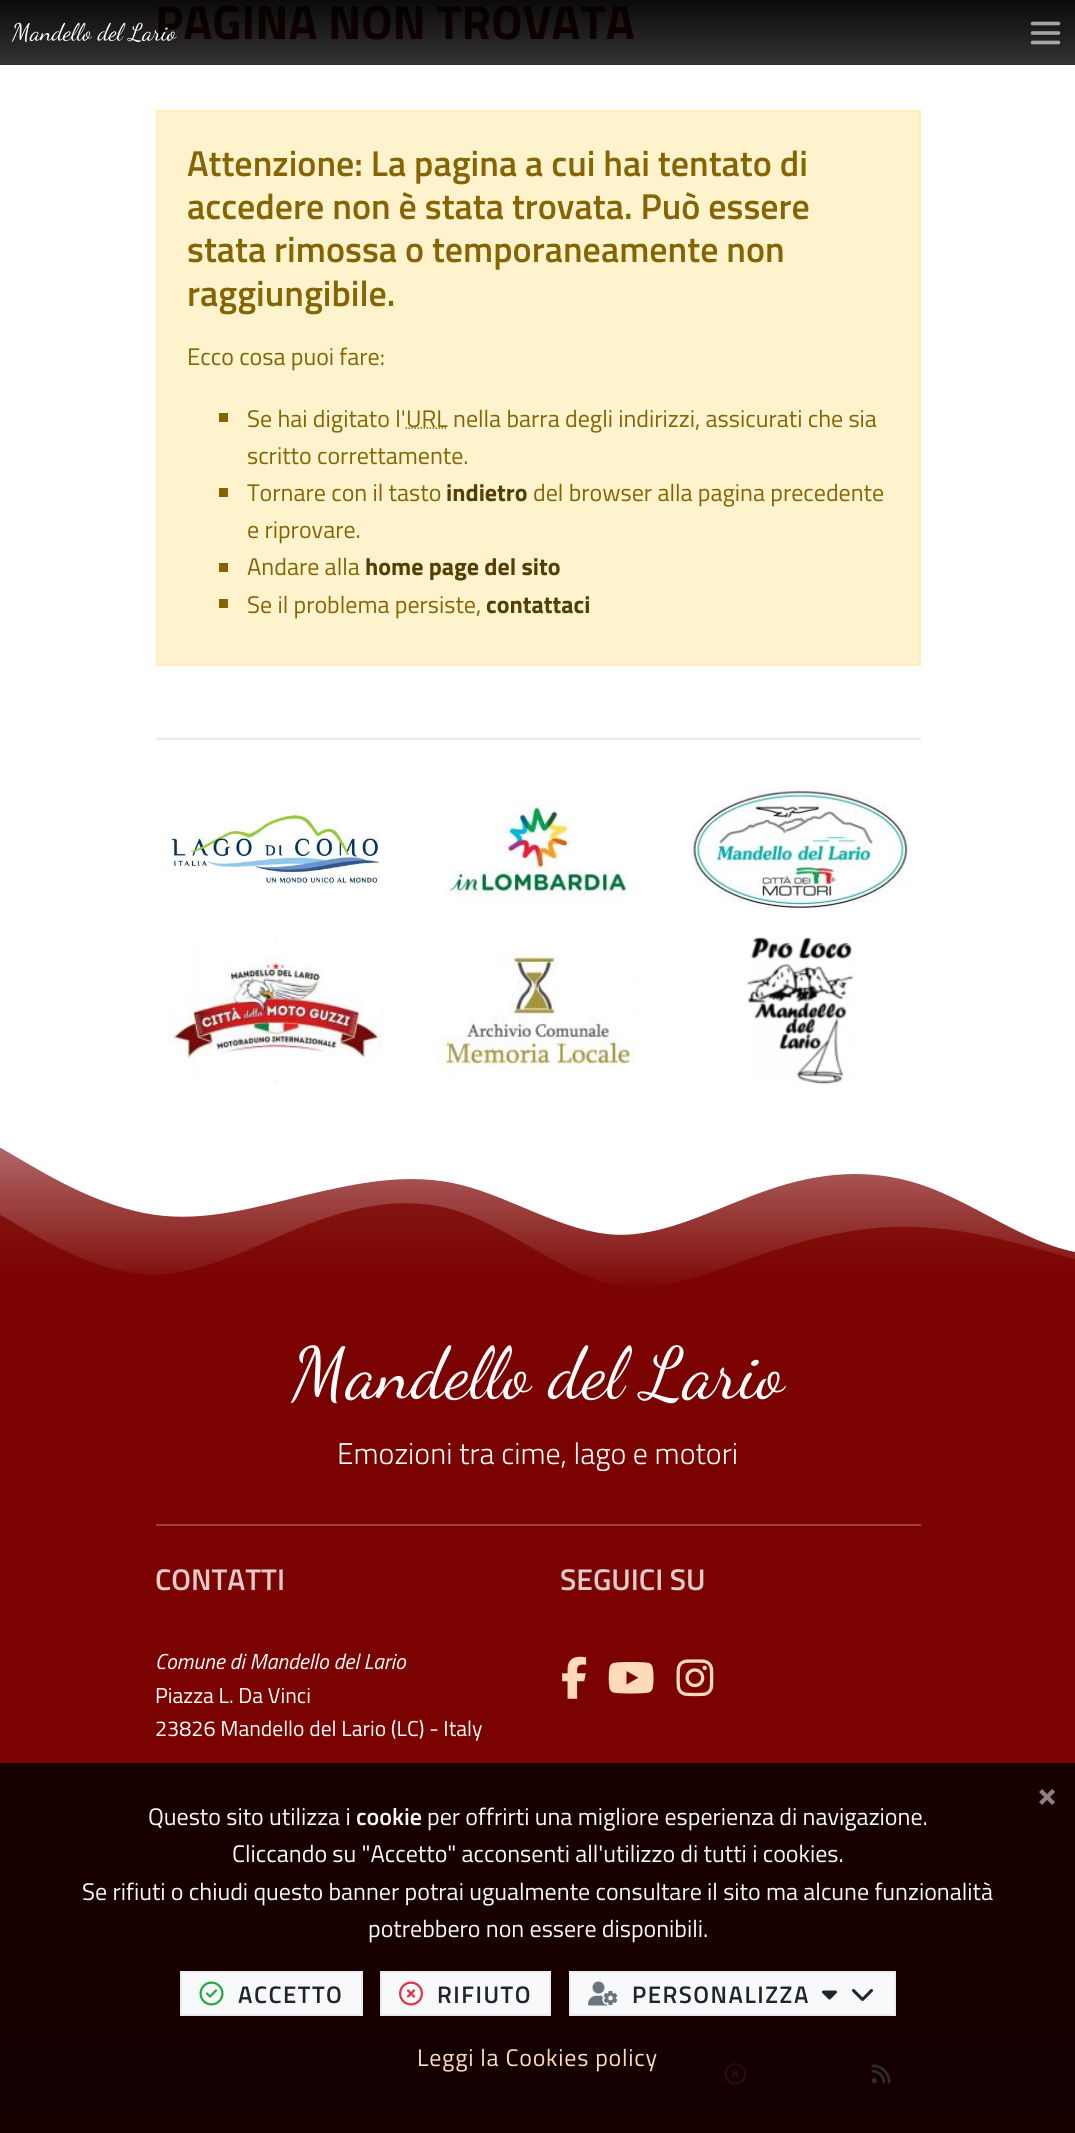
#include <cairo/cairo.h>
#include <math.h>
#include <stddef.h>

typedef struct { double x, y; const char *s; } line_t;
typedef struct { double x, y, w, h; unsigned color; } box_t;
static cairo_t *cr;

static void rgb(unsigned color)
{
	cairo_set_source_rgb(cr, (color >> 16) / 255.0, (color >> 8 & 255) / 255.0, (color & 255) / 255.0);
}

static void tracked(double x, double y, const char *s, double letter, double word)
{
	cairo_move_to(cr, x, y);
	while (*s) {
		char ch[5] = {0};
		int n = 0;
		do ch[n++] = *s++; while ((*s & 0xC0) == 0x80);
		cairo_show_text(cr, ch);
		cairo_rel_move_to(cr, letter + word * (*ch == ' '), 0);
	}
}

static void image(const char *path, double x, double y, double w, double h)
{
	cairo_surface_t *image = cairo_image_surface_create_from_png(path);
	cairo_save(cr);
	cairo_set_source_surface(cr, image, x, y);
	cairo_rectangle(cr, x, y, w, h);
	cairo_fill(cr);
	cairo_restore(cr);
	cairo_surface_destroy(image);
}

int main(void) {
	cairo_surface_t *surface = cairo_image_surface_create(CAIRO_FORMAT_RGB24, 1075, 2133);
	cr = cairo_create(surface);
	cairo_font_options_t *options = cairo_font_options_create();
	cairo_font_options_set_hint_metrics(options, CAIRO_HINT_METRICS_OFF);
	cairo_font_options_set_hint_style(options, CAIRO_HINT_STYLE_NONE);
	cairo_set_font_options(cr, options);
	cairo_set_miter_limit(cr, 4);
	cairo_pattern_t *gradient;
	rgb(0xffffff);
	cairo_paint(cr);
	rgb(0x333333);
	cairo_rectangle(cr, 0, 0, 1075, 65);
	cairo_fill(cr);
	rgb(0xeaebec);
	cairo_rectangle(cr, 156, 738, 765, 2);
	cairo_fill(cr);
	rgb(0xfff3cd);
	cairo_rectangle(cr, 157, 111, 763, 554);
	cairo_fill_preserve(cr);
	rgb(0xffeeba);
	cairo_stroke(cr);
	rgb(0x856404);
	cairo_rectangle(cr, 219, 413, 9, 9);
	cairo_fill(cr);
	cairo_new_path(cr);
	cairo_move_to(cr, 405.5, 428);
	cairo_line_to(cr, 447.5, 428);
	cairo_set_line_width(cr, 1.5);
	cairo_set_dash(cr, (double[]){1.5, 1.5}, 2, 0);
	cairo_stroke(cr);
	{
		static const box_t items[] = {
			{219, 488, 9, 9, 0x856404},
			{219, 563, 9, 9, 0x856404},
			{219, 599, 9, 9, 0x856404},
		};
		for (size_t i = 0; i < sizeof items / sizeof *items; i++) {
			rgb(items[i].color);
			cairo_rectangle(cr, items[i].x, items[i].y, items[i].w, items[i].h);
			cairo_fill(cr);
		}
	}
	image("img/1.png", 168, 814, 212, 71);
	image("img/2.png", 446, 803, 182, 101);
	image("img/3.png", 691, 788, 217, 122);
	image("img/4.png", 168, 937, 216, 147);
	image("img/5.png", 438, 955, 200, 121);
	image("img/6.png", 747, 937, 107, 148);
	image("img/7.png", 0, 1148, 1075, 147);
	rgb(0x7a0200);
	cairo_rectangle(cr, 0, 1295, 1075, 838);
	cairo_fill(cr);
	rgb(0x9b4140);
	cairo_rectangle(cr, 156, 1524, 765, 2);
	cairo_fill(cr);
	image("img/8.png", 562, 1656, 25, 43);
	image("img/9.png", 608, 1662, 46, 32);
	image("img/10.png", 676, 1659, 38, 38);
	rgb(0x620200);
	cairo_rectangle(cr, 0, 2034, 1075, 81);
	cairo_fill(cr);
	image("img/11.png", 724, 2063, 23, 22);
	image("img/12.png", 871, 2064, 20, 20);
	cairo_set_source_rgba(cr, 0, 0, 0, 0.8);
	cairo_rectangle(cr, 0, 1763, 1075, 370);
	cairo_fill(cr);
	rgb(0xf8f9fa);
	cairo_rectangle(cr, 181, 1972, 181, 43);
	cairo_fill_preserve(cr);
	rgb(0xeaebec);
	cairo_set_line_width(cr, 2);
	cairo_set_dash(cr, NULL, 0, 0);
	cairo_stroke(cr);
	image("img/13.png", 199, 1981, 25, 25);
	rgb(0xf8f9fa);
	cairo_rectangle(cr, 381, 1972, 169, 43);
	cairo_fill_preserve(cr);
	rgb(0xeaebec);
	cairo_stroke(cr);
	image("img/14.png", 399, 1981, 24, 25);
	rgb(0xf8f9fa);
	cairo_rectangle(cr, 570, 1972, 325, 43);
	cairo_fill_preserve(cr);
	rgb(0xeaebec);
	cairo_stroke(cr);
	image("img/15.png", 588, 1981, 30, 25);
	image("img/16.png", 822, 1990, 15, 10);
	image("img/17.png", 852, 1989, 21, 12);
	cairo_select_font_face(cr, "Titillium Web", CAIRO_FONT_SLANT_NORMAL, CAIRO_FONT_WEIGHT_BOLD);
	cairo_set_font_size(cr, 48);
	rgb(0x180000);
	cairo_move_to(cr, 155, 39);
	cairo_show_text(cr, "PAGINA NON TROVATA");
	gradient = cairo_pattern_create_linear(538, 0, 538, 65);
	cairo_pattern_add_color_stop_rgba(gradient, 0, 0, 0, 0, 0.8);
	cairo_pattern_add_color_stop_rgba(gradient, 1, 0, 0, 0, 0);
	cairo_set_source(cr, gradient);
	cairo_pattern_destroy(gradient);
	cairo_rectangle(cr, 0, 0, 1075, 61);
	cairo_fill(cr);
	cairo_new_path(cr);
	cairo_move_to(cr, 1032.5, 23.5);
	cairo_line_to(cr, 1058.5, 23.5);
	cairo_move_to(cr, 1032.5, 33);
	cairo_line_to(cr, 1058.5, 33);
	cairo_move_to(cr, 1032.5, 42.5);
	cairo_line_to(cr, 1058.5, 42.5);
	cairo_set_source_rgba(cr, 1, 1, 1, 0.6);
	cairo_set_line_width(cr, 3.6);
	cairo_set_line_cap(cr, CAIRO_LINE_CAP_ROUND);
	cairo_stroke(cr);
	cairo_select_font_face(cr, "Dancing Script", CAIRO_FONT_SLANT_NORMAL, CAIRO_FONT_WEIGHT_NORMAL);
	cairo_set_font_size(cr, 24);
	rgb(0xffffff);
	cairo_move_to(cr, 12, 40);
	cairo_show_text(cr, "Mandello del Lario");
	cairo_select_font_face(cr, "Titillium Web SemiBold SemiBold", CAIRO_FONT_SLANT_NORMAL, CAIRO_FONT_WEIGHT_NORMAL);
	cairo_set_font_size(cr, 36);
	rgb(0x856404);
	{
		static const line_t items[] = {
			{187, 176, "Attenzione: La pagina a cui hai tentato di"},
			{187, 219, "accedere non è stata trovata. Può essere"},
			{187, 262, "stata rimossa o temporaneamente non"},
			{187, 306, "raggiungibile."},
		};
		for (size_t i = 0; i < sizeof items / sizeof *items; i++) {
			cairo_move_to(cr, items[i].x, items[i].y);
			cairo_show_text(cr, items[i].s);
		}
	}
	cairo_select_font_face(cr, "Titillium Web", CAIRO_FONT_SLANT_NORMAL, CAIRO_FONT_WEIGHT_NORMAL);
	cairo_set_font_size(cr, 24);
	{
		static const line_t items[] = {
			{187, 365, "Ecco cosa puoi fare:"},
			{247, 427, "Se hai digitato l'"},
			{406, 427, "URL nella barra degli indirizzi, assicurati che sia"},
			{247, 464, "scritto correttamente."},
			{247, 501, "Tornare con il tasto"},
		};
		for (size_t i = 0; i < sizeof items / sizeof *items; i++) {
			cairo_move_to(cr, items[i].x, items[i].y);
			cairo_show_text(cr, items[i].s);
		}
	}
	cairo_select_font_face(cr, "Titillium Web", CAIRO_FONT_SLANT_NORMAL, CAIRO_FONT_WEIGHT_BOLD);
	rgb(0x533f03);
	cairo_move_to(cr, 446, 501);
	cairo_show_text(cr, "indietro");
	cairo_select_font_face(cr, "Titillium Web", CAIRO_FONT_SLANT_NORMAL, CAIRO_FONT_WEIGHT_NORMAL);
	rgb(0x856404);
	{
		static const line_t items[] = {
			{533, 501, "del browser alla pagina precedente"},
			{247, 538, "e riprovare."},
			{247, 575, "Andare alla"},
		};
		for (size_t i = 0; i < sizeof items / sizeof *items; i++) {
			cairo_move_to(cr, items[i].x, items[i].y);
			cairo_show_text(cr, items[i].s);
		}
	}
	cairo_select_font_face(cr, "Titillium Web", CAIRO_FONT_SLANT_NORMAL, CAIRO_FONT_WEIGHT_BOLD);
	rgb(0x533f03);
	cairo_move_to(cr, 365, 575);
	cairo_show_text(cr, "home page del sito");
	cairo_select_font_face(cr, "Titillium Web", CAIRO_FONT_SLANT_NORMAL, CAIRO_FONT_WEIGHT_NORMAL);
	rgb(0x856404);
	cairo_move_to(cr, 247, 613);
	cairo_show_text(cr, "Se il problema persiste,");
	cairo_select_font_face(cr, "Titillium Web", CAIRO_FONT_SLANT_NORMAL, CAIRO_FONT_WEIGHT_BOLD);
	rgb(0x533f03);
	cairo_move_to(cr, 486, 613);
	cairo_show_text(cr, "contattaci");
	cairo_select_font_face(cr, "Dancing Script", CAIRO_FONT_SLANT_NORMAL, CAIRO_FONT_WEIGHT_NORMAL);
	cairo_set_font_size(cr, 72);
	rgb(0xffffff);
	cairo_move_to(cr, 292, 1397);
	cairo_show_text(cr, "Mandello del Lario");
	cairo_select_font_face(cr, "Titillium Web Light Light", CAIRO_FONT_SLANT_NORMAL, CAIRO_FONT_WEIGHT_NORMAL);
	cairo_set_font_size(cr, 30);
	cairo_move_to(cr, 337, 1464);
	cairo_show_text(cr, "Emozioni tra cime, lago e motori");
	cairo_select_font_face(cr, "Titillium Web SemiBold SemiBold", CAIRO_FONT_SLANT_NORMAL, CAIRO_FONT_WEIGHT_NORMAL);
	rgb(0xe4cccc);
	cairo_move_to(cr, 155, 1590);
	cairo_show_text(cr, "CONTATTI");
	cairo_select_font_face(cr, "Titillium Web", CAIRO_FONT_SLANT_ITALIC, CAIRO_FONT_WEIGHT_NORMAL);
	cairo_set_font_size(cr, 21.6);
	rgb(0xffffff);
	cairo_move_to(cr, 155, 1669);
	cairo_show_text(cr, "Comune di Mandello del Lario");
	cairo_select_font_face(cr, "Titillium Web", CAIRO_FONT_SLANT_NORMAL, CAIRO_FONT_WEIGHT_NORMAL);
	cairo_move_to(cr, 155, 1703);
	cairo_show_text(cr, "Piazza L. Da Vinci");
	cairo_move_to(cr, 155, 1736);
	cairo_show_text(cr, "23826 Mandello del Lario (LC) - Italy");
	cairo_select_font_face(cr, "Titillium Web SemiBold SemiBold", CAIRO_FONT_SLANT_NORMAL, CAIRO_FONT_WEIGHT_NORMAL);
	cairo_set_font_size(cr, 30);
	rgb(0xe4cccc);
	cairo_move_to(cr, 560, 1590);
	cairo_show_text(cr, "SEGUICI SU");
	cairo_select_font_face(cr, "Titillium Web", CAIRO_FONT_SLANT_NORMAL, CAIRO_FONT_WEIGHT_BOLD);
	cairo_set_font_size(cr, 36);
	rgb(0x8c8080);
	cairo_move_to(cr, 1037, 1806);
	cairo_show_text(cr, "×");
	cairo_select_font_face(cr, "Titillium Web", CAIRO_FONT_SLANT_NORMAL, CAIRO_FONT_WEIGHT_NORMAL);
	cairo_set_font_size(cr, 24);
	rgb(0xf8f9fa);
	cairo_move_to(cr, 148, 1825);
	cairo_show_text(cr, "Questo sito utilizza i");
	cairo_select_font_face(cr, "Titillium Web SemiBold SemiBold", CAIRO_FONT_SLANT_NORMAL, CAIRO_FONT_WEIGHT_NORMAL);
	cairo_move_to(cr, 356, 1825);
	cairo_show_text(cr, "cookie");
	cairo_select_font_face(cr, "Titillium Web", CAIRO_FONT_SLANT_NORMAL, CAIRO_FONT_WEIGHT_NORMAL);
	{
		static const line_t items[] = {
			{427, 1825, "per offrirti una migliore esperienza di navigazione."},
			{232, 1862, "Cliccando su \"Accetto\" acconsenti all'utilizzo di tutti i cookies."},
			{82, 1900, "Se rifiuti o chiudi questo banner potrai ugualmente consultare il sito ma alcune funzionalità"},
			{368, 1937, "potrebbero non essere disponibili."},
		};
		for (size_t i = 0; i < sizeof items / sizeof *items; i++) {
			cairo_move_to(cr, items[i].x, items[i].y);
			cairo_show_text(cr, items[i].s);
		}
	}
	cairo_select_font_face(cr, "Titillium Web SemiBold SemiBold", CAIRO_FONT_SLANT_NORMAL, CAIRO_FONT_WEIGHT_NORMAL);
	rgb(0x212529);
	{
		static const line_t items[] = {
			{238, 2003, "ACCETTO"},
			{437, 2003, "RIFIUTO"},
			{632, 2003, "PERSONALIZZA"},
		};
		for (size_t i = 0; i < sizeof items / sizeof *items; i++) {
			tracked(items[i].x, items[i].y, items[i].s, 1.5, 0);
		}
	}
	cairo_select_font_face(cr, "Titillium Web", CAIRO_FONT_SLANT_NORMAL, CAIRO_FONT_WEIGHT_NORMAL);
	rgb(0xffdab8);
	tracked(417, 2066, "Leggi la Cookies policy", 0.75, 0);
	cairo_surface_write_to_png(surface, "page.png");
	cairo_font_options_destroy(options);
	cairo_destroy(cr);
	cairo_surface_destroy(surface);
	return 0;
}
